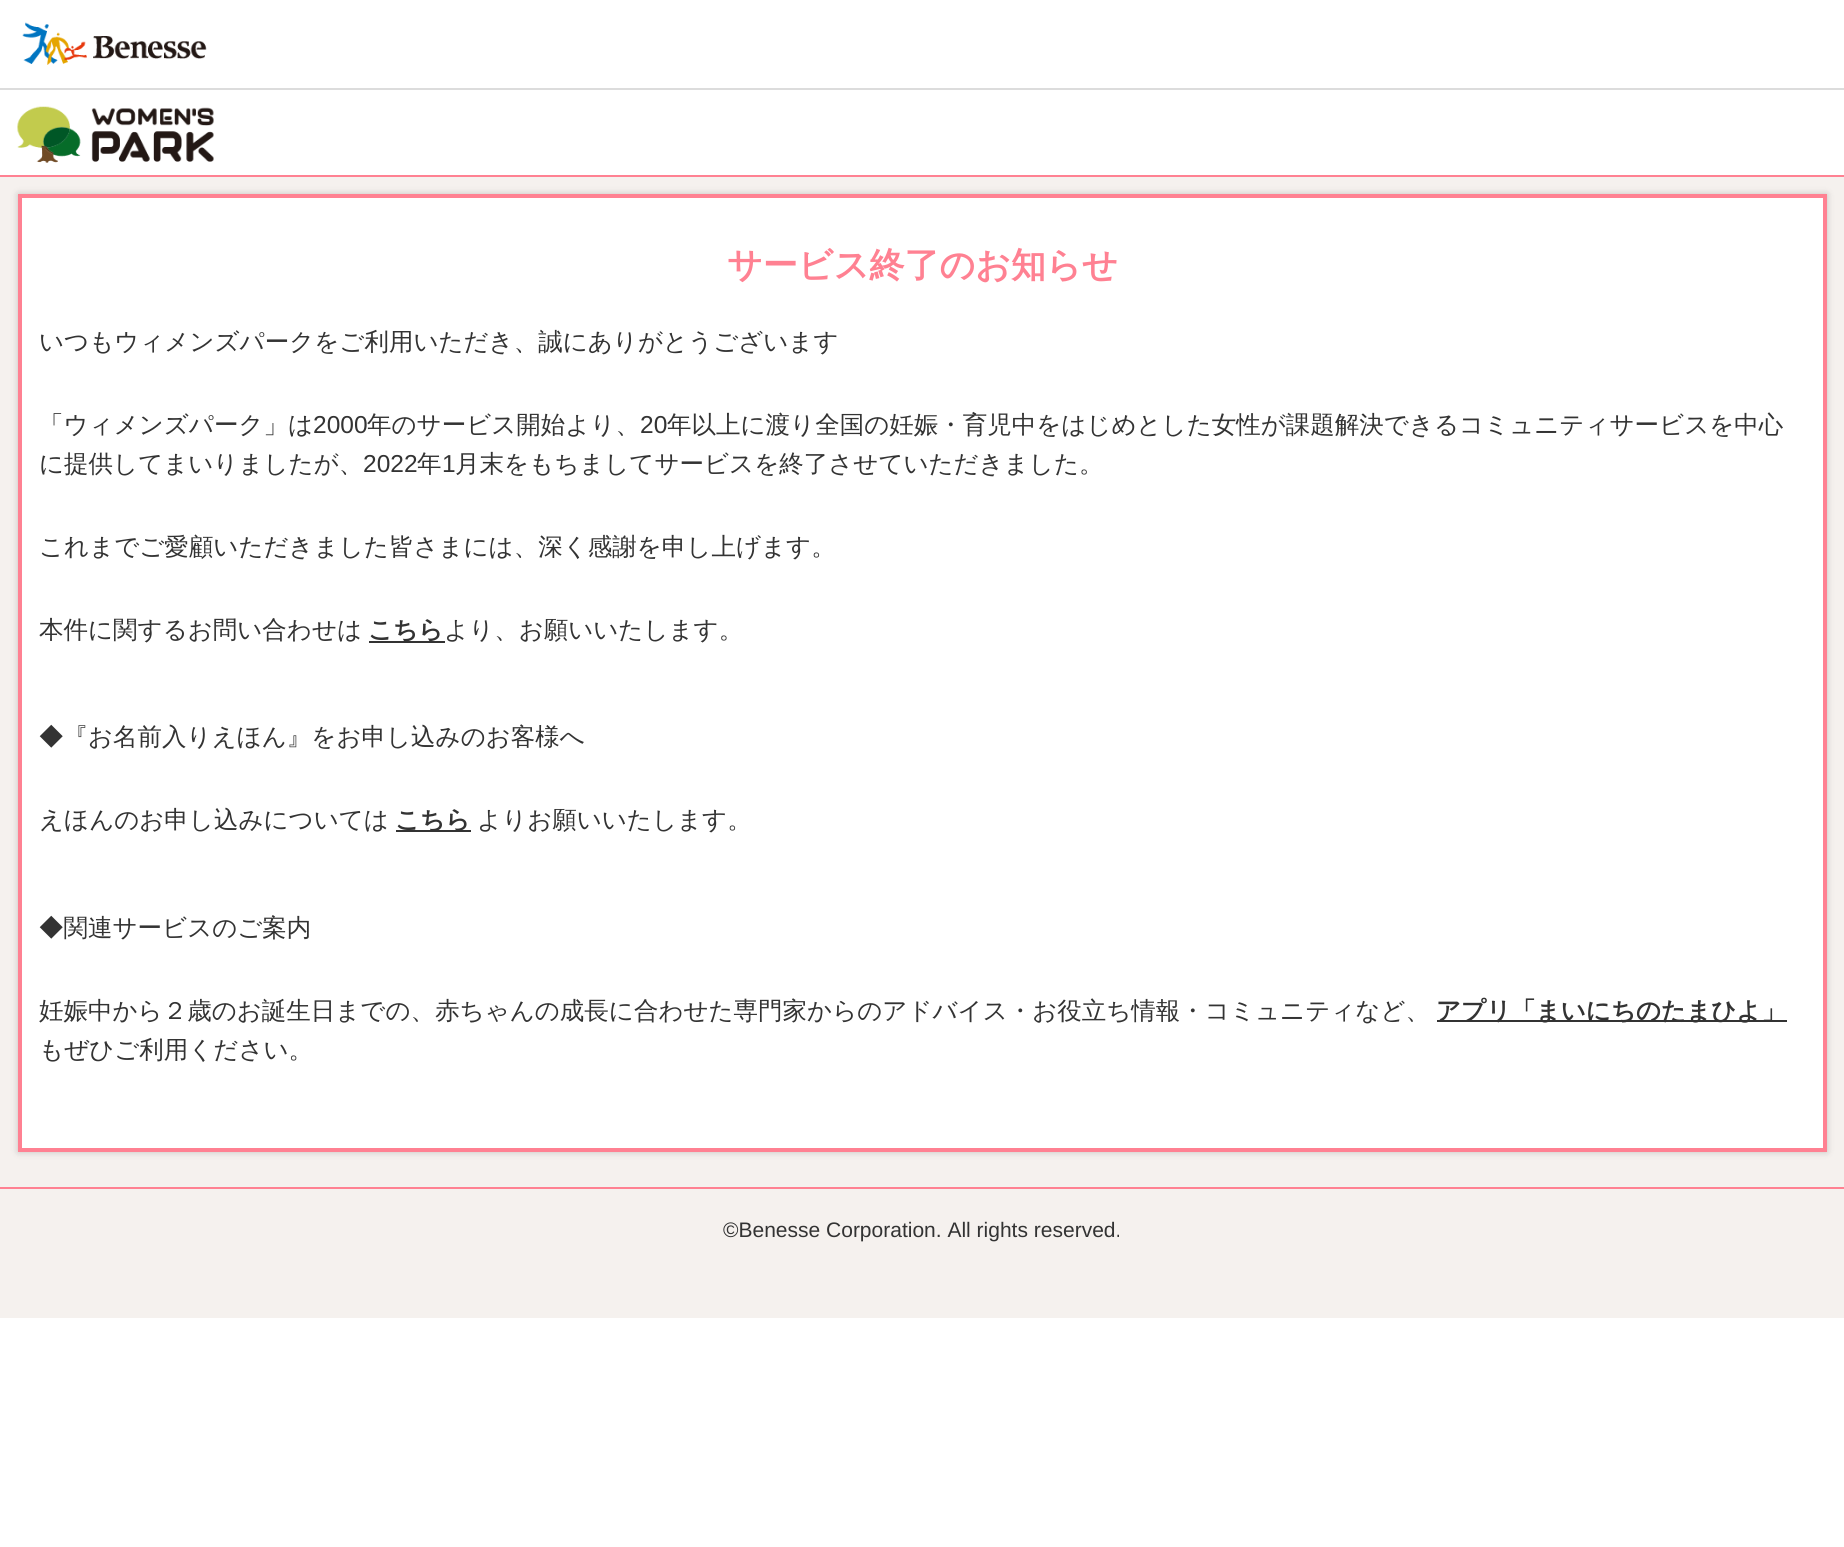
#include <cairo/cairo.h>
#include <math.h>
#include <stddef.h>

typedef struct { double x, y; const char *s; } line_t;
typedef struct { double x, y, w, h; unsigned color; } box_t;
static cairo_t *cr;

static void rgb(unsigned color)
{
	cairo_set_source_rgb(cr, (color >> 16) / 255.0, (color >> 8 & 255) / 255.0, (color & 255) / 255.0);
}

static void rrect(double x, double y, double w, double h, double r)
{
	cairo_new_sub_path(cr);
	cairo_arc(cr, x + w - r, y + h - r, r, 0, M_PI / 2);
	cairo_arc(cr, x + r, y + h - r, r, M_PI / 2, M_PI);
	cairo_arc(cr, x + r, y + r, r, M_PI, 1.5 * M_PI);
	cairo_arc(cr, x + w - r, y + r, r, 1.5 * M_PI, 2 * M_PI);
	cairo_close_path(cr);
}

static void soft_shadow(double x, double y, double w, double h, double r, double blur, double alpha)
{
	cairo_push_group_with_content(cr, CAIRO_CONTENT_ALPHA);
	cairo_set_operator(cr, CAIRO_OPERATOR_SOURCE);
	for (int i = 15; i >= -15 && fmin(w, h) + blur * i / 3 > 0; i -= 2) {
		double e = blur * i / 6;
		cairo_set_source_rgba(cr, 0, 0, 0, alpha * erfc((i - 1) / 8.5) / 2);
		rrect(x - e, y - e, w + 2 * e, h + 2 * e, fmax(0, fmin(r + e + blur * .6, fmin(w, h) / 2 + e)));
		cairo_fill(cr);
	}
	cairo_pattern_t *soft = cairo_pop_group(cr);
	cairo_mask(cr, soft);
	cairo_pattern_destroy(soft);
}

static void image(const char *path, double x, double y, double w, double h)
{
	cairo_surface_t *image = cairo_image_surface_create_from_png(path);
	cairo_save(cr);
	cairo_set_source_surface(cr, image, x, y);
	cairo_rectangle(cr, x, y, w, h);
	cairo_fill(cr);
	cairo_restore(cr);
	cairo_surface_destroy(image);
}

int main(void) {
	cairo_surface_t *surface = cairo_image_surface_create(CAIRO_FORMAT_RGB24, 1844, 1547);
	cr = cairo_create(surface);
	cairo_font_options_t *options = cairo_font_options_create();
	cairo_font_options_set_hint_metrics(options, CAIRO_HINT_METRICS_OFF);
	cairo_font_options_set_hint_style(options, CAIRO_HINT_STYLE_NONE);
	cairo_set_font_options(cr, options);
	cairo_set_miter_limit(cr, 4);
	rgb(0xffffff);
	cairo_paint(cr);
	rgb(0xdcdcdc);
	cairo_rectangle(cr, 0, 88, 1844, 2);
	cairo_fill(cr);
	image("img/1.png", 22, 22, 185, 43);
	rgb(0xff8192);
	cairo_rectangle(cr, 0, 175, 1844, 2);
	cairo_fill(cr);
	image("img/2.png", 17, 106, 197, 57);
	rgb(0xf5f1ee);
	cairo_rectangle(cr, 0, 177, 1844, 1010);
	cairo_fill(cr);
	rgb(0x030303);
	soft_shadow(18, 194, 1809, 958, 0, 3.5, 0.2);
	rgb(0xffffff);
	cairo_rectangle(cr, 20, 196, 1805, 954);
	cairo_fill_preserve(cr);
	rgb(0xff8192);
	cairo_set_line_width(cr, 4);
	cairo_stroke(cr);
	{
		static const box_t items[] = {
			{369, 641, 76, 2, 0x333333},
			{396, 830, 75, 2, 0x333333},
			{1437, 1020, 350, 2, 0x333333},
			{0, 1189, 1844, 129, 0xf5f1ee},
			{0, 1187, 1844, 2, 0xff8192},
		};
		for (size_t i = 0; i < sizeof items / sizeof *items; i++) {
			rgb(items[i].color);
			cairo_rectangle(cr, items[i].x, items[i].y, items[i].w, items[i].h);
			cairo_fill(cr);
		}
	}
	cairo_select_font_face(cr, "WenQuanYi Zen Hei", CAIRO_FONT_SLANT_NORMAL, CAIRO_FONT_WEIGHT_BOLD);
	cairo_set_font_size(cr, 35);
	cairo_move_to(cr, 727, 277);
	cairo_show_text(cr, "サービス終了のお知らせ");
	cairo_select_font_face(cr, "WenQuanYi Zen Hei Medium", CAIRO_FONT_SLANT_NORMAL, CAIRO_FONT_WEIGHT_NORMAL);
	cairo_set_font_size(cr, 24.5);
	rgb(0x333333);
	cairo_move_to(cr, 39, 350);
	cairo_show_text(cr, "いつもウィメンズパークをご利用いただき、誠にありがとうございます");
	cairo_move_to(cr, 39, 433);
	cairo_show_text(cr, "「ウィメンズパーク」は");
	cairo_select_font_face(cr, "Liberation Sans", CAIRO_FONT_SLANT_NORMAL, CAIRO_FONT_WEIGHT_NORMAL);
	cairo_move_to(cr, 313, 433);
	cairo_show_text(cr, "2000");
	cairo_select_font_face(cr, "WenQuanYi Zen Hei Medium", CAIRO_FONT_SLANT_NORMAL, CAIRO_FONT_WEIGHT_NORMAL);
	cairo_move_to(cr, 367, 433);
	cairo_show_text(cr, "年のサービス開始より、");
	cairo_select_font_face(cr, "Liberation Sans", CAIRO_FONT_SLANT_NORMAL, CAIRO_FONT_WEIGHT_NORMAL);
	cairo_move_to(cr, 640, 433);
	cairo_show_text(cr, "20");
	cairo_select_font_face(cr, "WenQuanYi Zen Hei Medium", CAIRO_FONT_SLANT_NORMAL, CAIRO_FONT_WEIGHT_NORMAL);
	cairo_move_to(cr, 667, 433);
	cairo_show_text(cr, "年以上に渡り全国の妊娠・育児中をはじめとした女性が課題解決できるコミュニティサービスを中心");
	cairo_move_to(cr, 39, 472);
	cairo_show_text(cr, "に提供してまいりましたが、");
	cairo_select_font_face(cr, "Liberation Sans", CAIRO_FONT_SLANT_NORMAL, CAIRO_FONT_WEIGHT_NORMAL);
	cairo_move_to(cr, 363, 472);
	cairo_show_text(cr, "2022");
	cairo_select_font_face(cr, "WenQuanYi Zen Hei Medium", CAIRO_FONT_SLANT_NORMAL, CAIRO_FONT_WEIGHT_NORMAL);
	cairo_move_to(cr, 417, 472);
	cairo_show_text(cr, "年");
	cairo_select_font_face(cr, "Liberation Sans", CAIRO_FONT_SLANT_NORMAL, CAIRO_FONT_WEIGHT_NORMAL);
	cairo_move_to(cr, 442, 472);
	cairo_show_text(cr, "1");
	cairo_select_font_face(cr, "WenQuanYi Zen Hei Medium", CAIRO_FONT_SLANT_NORMAL, CAIRO_FONT_WEIGHT_NORMAL);
	{
		static const line_t items[] = {
			{455, 472, "月末をもちましてサービスを終了させていただきました。"},
			{39, 555, "これまでご愛顧いただきました皆さまには、深く感謝を申し上げます。"},
			{39, 638, "本件に関するお問い合わせは"},
		};
		for (size_t i = 0; i < sizeof items / sizeof *items; i++) {
			cairo_move_to(cr, items[i].x, items[i].y);
			cairo_show_text(cr, items[i].s);
		}
	}
	cairo_select_font_face(cr, "WenQuanYi Zen Hei", CAIRO_FONT_SLANT_NORMAL, CAIRO_FONT_WEIGHT_BOLD);
	cairo_move_to(cr, 368, 638);
	cairo_show_text(cr, "こちら");
	cairo_select_font_face(cr, "WenQuanYi Zen Hei Medium", CAIRO_FONT_SLANT_NORMAL, CAIRO_FONT_WEIGHT_NORMAL);
	{
		static const line_t items[] = {
			{444, 638, "より、お願いいたします。"},
			{39, 745, "◆『お名前入りえほん』をお申し込みのお客様へ"},
			{39, 828, "えほんのお申し込みについては"},
		};
		for (size_t i = 0; i < sizeof items / sizeof *items; i++) {
			cairo_move_to(cr, items[i].x, items[i].y);
			cairo_show_text(cr, items[i].s);
		}
	}
	cairo_select_font_face(cr, "WenQuanYi Zen Hei", CAIRO_FONT_SLANT_NORMAL, CAIRO_FONT_WEIGHT_BOLD);
	cairo_move_to(cr, 395, 828);
	cairo_show_text(cr, "こちら");
	cairo_select_font_face(cr, "WenQuanYi Zen Hei Medium", CAIRO_FONT_SLANT_NORMAL, CAIRO_FONT_WEIGHT_NORMAL);
	{
		static const line_t items[] = {
			{477, 828, "よりお願いいたします。"},
			{39, 936, "◆関連サービスのご案内"},
			{39, 1019, "妊娠中から２歳のお誕生日までの、赤ちゃんの成長に合わせた専門家からのアドバイス・お役立ち情報・コミュニティなど、"},
		};
		for (size_t i = 0; i < sizeof items / sizeof *items; i++) {
			cairo_move_to(cr, items[i].x, items[i].y);
			cairo_show_text(cr, items[i].s);
		}
	}
	cairo_select_font_face(cr, "WenQuanYi Zen Hei", CAIRO_FONT_SLANT_NORMAL, CAIRO_FONT_WEIGHT_BOLD);
	cairo_move_to(cr, 1436, 1019);
	cairo_show_text(cr, "アプリ「まいにちのたまひよ」");
	cairo_select_font_face(cr, "WenQuanYi Zen Hei Medium", CAIRO_FONT_SLANT_NORMAL, CAIRO_FONT_WEIGHT_NORMAL);
	cairo_move_to(cr, 39, 1058);
	cairo_show_text(cr, "もぜひご利用ください。");
	cairo_select_font_face(cr, "Liberation Sans", CAIRO_FONT_SLANT_NORMAL, CAIRO_FONT_WEIGHT_NORMAL);
	cairo_set_font_size(cr, 21);
	cairo_move_to(cr, 723, 1237);
	cairo_show_text(cr, "©Benesse Corporation. All rights reserved.");
	cairo_surface_write_to_png(surface, "page.png");
	cairo_font_options_destroy(options);
	cairo_destroy(cr);
	cairo_surface_destroy(surface);
	return 0;
}
